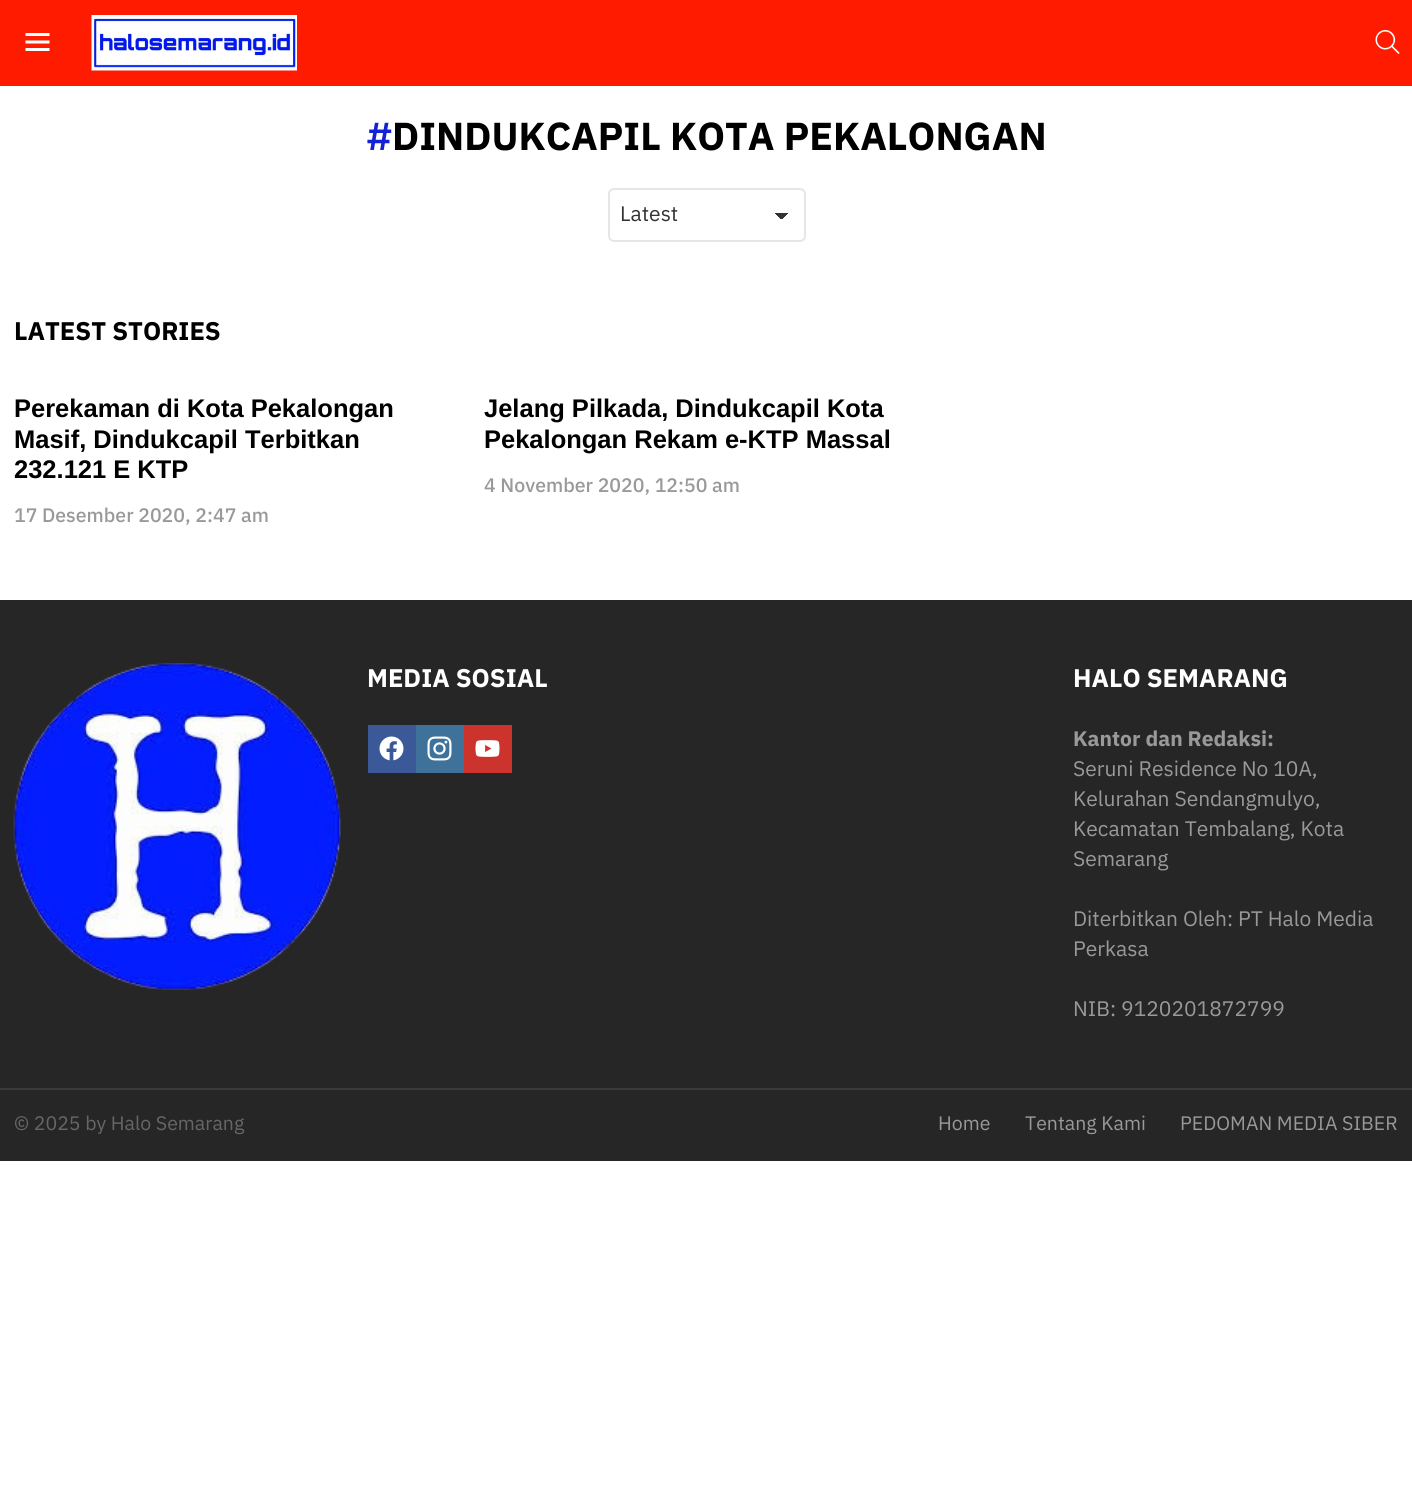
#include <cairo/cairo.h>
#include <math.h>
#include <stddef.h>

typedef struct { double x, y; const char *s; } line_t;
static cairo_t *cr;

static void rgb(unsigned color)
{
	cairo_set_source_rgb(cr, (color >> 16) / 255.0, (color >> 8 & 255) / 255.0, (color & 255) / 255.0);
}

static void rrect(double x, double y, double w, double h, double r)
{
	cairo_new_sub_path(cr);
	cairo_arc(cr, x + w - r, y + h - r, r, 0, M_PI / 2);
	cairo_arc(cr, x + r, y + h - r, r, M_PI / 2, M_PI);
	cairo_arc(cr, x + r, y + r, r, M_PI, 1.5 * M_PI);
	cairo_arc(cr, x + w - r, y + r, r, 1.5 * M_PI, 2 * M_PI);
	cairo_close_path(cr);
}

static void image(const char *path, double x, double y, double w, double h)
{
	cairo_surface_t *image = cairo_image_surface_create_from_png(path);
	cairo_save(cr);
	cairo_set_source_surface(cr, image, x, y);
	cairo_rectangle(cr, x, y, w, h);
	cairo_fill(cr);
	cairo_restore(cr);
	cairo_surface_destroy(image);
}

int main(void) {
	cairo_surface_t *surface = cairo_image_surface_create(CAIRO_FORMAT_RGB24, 1412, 1503);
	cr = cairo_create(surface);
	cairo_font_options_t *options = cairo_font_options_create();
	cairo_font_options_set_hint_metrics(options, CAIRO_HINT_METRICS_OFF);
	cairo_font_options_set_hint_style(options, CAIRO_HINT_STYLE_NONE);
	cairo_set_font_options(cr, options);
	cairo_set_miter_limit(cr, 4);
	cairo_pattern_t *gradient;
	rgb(0xffffff);
	cairo_paint(cr);
	rgb(0xff1b00);
	cairo_rectangle(cr, 0, 0, 1412, 86);
	cairo_fill(cr);
	image("img/1.png", 25, 33, 25, 18);
	image("img/2.png", 91, 15, 206, 56);
	image("img/3.png", 1375, 30, 25, 24);
	gradient = cairo_pattern_create_linear(782, 213, 789, 219);
	cairo_pattern_add_color_stop_rgba(gradient, 0.5, 0.2, 0.2, 0.2, 1);
	cairo_pattern_add_color_stop_rgba(gradient, 0.5, 1, 1, 1, 1);
	cairo_set_source(cr, gradient);
	cairo_pattern_destroy(gradient);
	cairo_rectangle(cr, 782, 213, 7, 6);
	cairo_fill(cr);
	gradient = cairo_pattern_create_linear(774, 219, 781, 213);
	cairo_pattern_add_color_stop_rgba(gradient, 0.5, 1, 1, 1, 1);
	cairo_pattern_add_color_stop_rgba(gradient, 0.5, 0.2, 0.2, 0.2, 1);
	cairo_set_source(cr, gradient);
	cairo_pattern_destroy(gradient);
	cairo_rectangle(cr, 774, 213, 8, 6);
	cairo_fill(cr);
	rrect(609, 189, 196, 52, 5);
	rgb(0xe6e6e6);
	cairo_stroke(cr);
	rgb(0x262626);
	cairo_rectangle(cr, 0, 600, 1412, 488);
	cairo_fill(cr);
	image("img/4.png", 13, 663, 328, 327);
	rgb(0x3b5998);
	cairo_rectangle(cr, 368, 725, 48, 48);
	cairo_fill(cr);
	image("img/5.png", 379, 736, 25, 25);
	rgb(0x3f729b);
	cairo_rectangle(cr, 416, 725, 48, 48);
	cairo_fill(cr);
	image("img/6.png", 427, 736, 25, 25);
	rgb(0xcd332d);
	cairo_rectangle(cr, 464, 725, 48, 48);
	cairo_fill(cr);
	image("img/7.png", 475, 740, 25, 17);
	rgb(0x393939);
	cairo_rectangle(cr, 0, 1088, 1412, 2);
	cairo_fill(cr);
	rgb(0x262626);
	cairo_rectangle(cr, 0, 1090, 1412, 71);
	cairo_fill(cr);
	cairo_select_font_face(cr, "IBM Plex Sans", CAIRO_FONT_SLANT_NORMAL, CAIRO_FONT_WEIGHT_BOLD);
	cairo_set_font_size(cr, 39);
	rgb(0x1421d5);
	cairo_move_to(cr, 367, 150);
	cairo_show_text(cr, "#");
	rgb(0x000000);
	cairo_move_to(cr, 392, 150);
	cairo_show_text(cr, "DINDUKCAPIL KOTA PEKALONGAN");
	cairo_select_font_face(cr, "IBM Plex Sans", CAIRO_FONT_SLANT_NORMAL, CAIRO_FONT_WEIGHT_NORMAL);
	cairo_set_font_size(cr, 21);
	rgb(0x333333);
	cairo_move_to(cr, 620, 221);
	cairo_show_text(cr, "Latest");
	cairo_select_font_face(cr, "IBM Plex Sans", CAIRO_FONT_SLANT_NORMAL, CAIRO_FONT_WEIGHT_BOLD);
	cairo_set_font_size(cr, 25.5);
	rgb(0x000000);
	cairo_move_to(cr, 14, 340);
	cairo_show_text(cr, "LATEST STORIES");
	cairo_select_font_face(cr, "Liberation Sans", CAIRO_FONT_SLANT_NORMAL, CAIRO_FONT_WEIGHT_BOLD);
	{
		static const line_t items[] = {
			{14, 417, "Perekaman di Kota Pekalongan"},
			{14, 448, "Masif, Dindukcapil Terbitkan"},
			{14, 478, "232.121 E KTP"},
		};
		for (size_t i = 0; i < sizeof items / sizeof *items; i++) {
			cairo_move_to(cr, items[i].x, items[i].y);
			cairo_show_text(cr, items[i].s);
		}
	}
	cairo_select_font_face(cr, "IBM Plex Sans Medium", CAIRO_FONT_SLANT_NORMAL, CAIRO_FONT_WEIGHT_NORMAL);
	cairo_set_font_size(cr, 19.5);
	rgb(0x999999);
	cairo_move_to(cr, 14, 522);
	cairo_show_text(cr, "17 Desember 2020, 2:47 am");
	cairo_select_font_face(cr, "Liberation Sans", CAIRO_FONT_SLANT_NORMAL, CAIRO_FONT_WEIGHT_BOLD);
	cairo_set_font_size(cr, 25.5);
	rgb(0x000000);
	cairo_move_to(cr, 484, 417);
	cairo_show_text(cr, "Jelang Pilkada, Dindukcapil Kota");
	cairo_move_to(cr, 484, 448);
	cairo_show_text(cr, "Pekalongan Rekam e-KTP Massal");
	cairo_select_font_face(cr, "IBM Plex Sans Medium", CAIRO_FONT_SLANT_NORMAL, CAIRO_FONT_WEIGHT_NORMAL);
	cairo_set_font_size(cr, 19.5);
	rgb(0x999999);
	cairo_move_to(cr, 484, 492);
	cairo_show_text(cr, "4 November 2020, 12:50 am");
	cairo_select_font_face(cr, "IBM Plex Sans", CAIRO_FONT_SLANT_NORMAL, CAIRO_FONT_WEIGHT_BOLD);
	cairo_set_font_size(cr, 25.5);
	rgb(0xffffff);
	cairo_move_to(cr, 367, 687);
	cairo_show_text(cr, "MEDIA SOSIAL");
	cairo_move_to(cr, 1073, 687);
	cairo_show_text(cr, "HALO SEMARANG");
	cairo_set_font_size(cr, 21);
	rgb(0x999999);
	cairo_move_to(cr, 1073, 746);
	cairo_show_text(cr, "Kantor dan Redaksi:");
	cairo_select_font_face(cr, "IBM Plex Sans", CAIRO_FONT_SLANT_NORMAL, CAIRO_FONT_WEIGHT_NORMAL);
	{
		static const line_t items[] = {
			{1073, 776, "Seruni Residence No 10A,"},
			{1073, 806, "Kelurahan Sendangmulyo,"},
			{1073, 836, "Kecamatan Tembalang, Kota"},
			{1073, 866, "Semarang"},
			{1073, 926, "Diterbitkan Oleh: PT Halo Media"},
			{1073, 956, "Perkasa"},
			{1073, 1016, "NIB: 9120201872799"},
		};
		for (size_t i = 0; i < sizeof items / sizeof *items; i++) {
			cairo_move_to(cr, items[i].x, items[i].y);
			cairo_show_text(cr, items[i].s);
		}
	}
	cairo_set_font_size(cr, 19.5);
	rgb(0x666666);
	cairo_move_to(cr, 14, 1130);
	cairo_show_text(cr, "© 2025 by Halo Semarang");
	rgb(0x999999);
	{
		static const line_t items[] = {
			{938, 1130, "Home"},
			{1025, 1130, "Tentang Kami"},
			{1180, 1130, "PEDOMAN MEDIA SIBER"},
		};
		for (size_t i = 0; i < sizeof items / sizeof *items; i++) {
			cairo_move_to(cr, items[i].x, items[i].y);
			cairo_show_text(cr, items[i].s);
		}
	}
	cairo_surface_write_to_png(surface, "page.png");
	cairo_font_options_destroy(options);
	cairo_destroy(cr);
	cairo_surface_destroy(surface);
	return 0;
}
